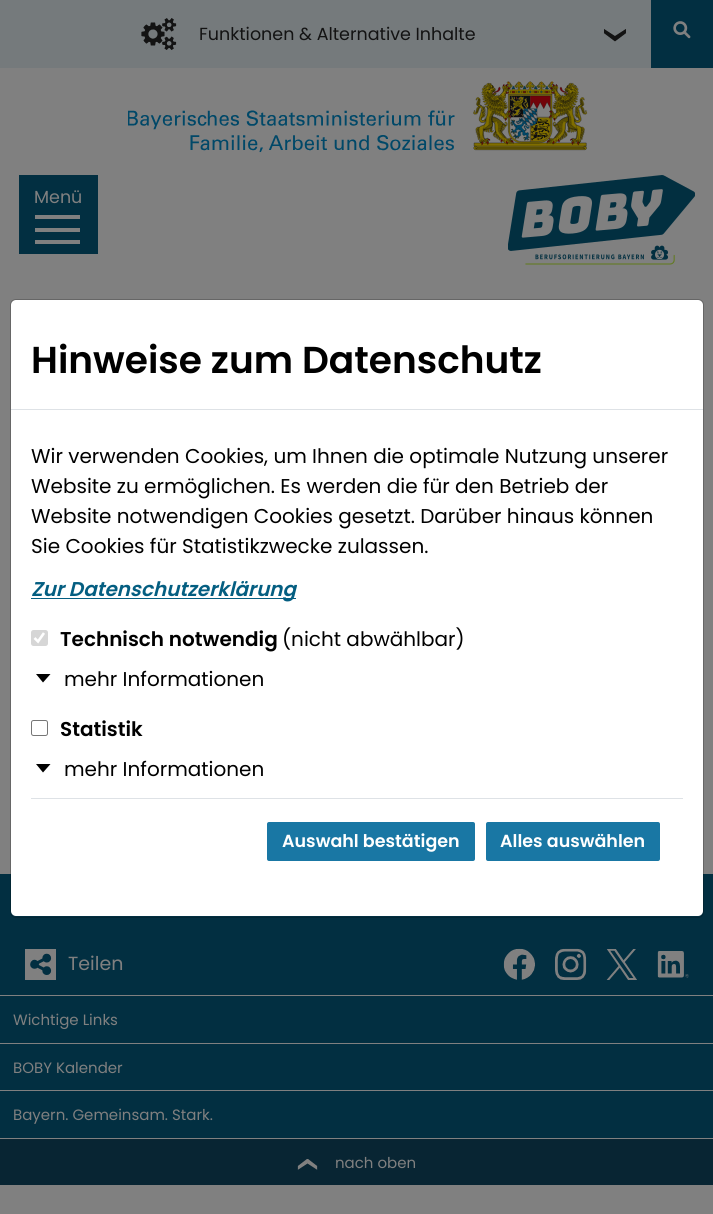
#include <cairo/cairo.h>
#include <math.h>
#include <stddef.h>

typedef struct { double x, y; const char *s; } line_t;
typedef struct { double x, y, w, h; unsigned color; } box_t;
static cairo_t *cr;

static void rgb(unsigned color)
{
	cairo_set_source_rgb(cr, (color >> 16) / 255.0, (color >> 8 & 255) / 255.0, (color & 255) / 255.0);
}

static void rrect(double x, double y, double w, double h, double r)
{
	cairo_new_sub_path(cr);
	cairo_arc(cr, x + w - r, y + h - r, r, 0, M_PI / 2);
	cairo_arc(cr, x + r, y + h - r, r, M_PI / 2, M_PI);
	cairo_arc(cr, x + r, y + r, r, M_PI, 1.5 * M_PI);
	cairo_arc(cr, x + w - r, y + r, r, 1.5 * M_PI, 2 * M_PI);
	cairo_close_path(cr);
}

static void image(const char *path, double x, double y, double w, double h)
{
	cairo_surface_t *image = cairo_image_surface_create_from_png(path);
	cairo_save(cr);
	cairo_set_source_surface(cr, image, x, y);
	cairo_rectangle(cr, x, y, w, h);
	cairo_fill(cr);
	cairo_restore(cr);
	cairo_surface_destroy(image);
}

int main(void) {
	cairo_surface_t *surface = cairo_image_surface_create(CAIRO_FORMAT_RGB24, 713, 1214);
	cr = cairo_create(surface);
	cairo_font_options_t *options = cairo_font_options_create();
	cairo_font_options_set_hint_metrics(options, CAIRO_HINT_METRICS_OFF);
	cairo_font_options_set_hint_style(options, CAIRO_HINT_STYLE_NONE);
	cairo_set_font_options(cr, options);
	cairo_set_miter_limit(cr, 4);
	rgb(0x808080);
	cairo_paint(cr);
	rgb(0x757a7c);
	cairo_rectangle(cr, 0, 0, 651, 68);
	cairo_fill(cr);
	image("img/1.png", 141, 18, 36, 32);
	image("img/2.png", 604, 29, 22, 13);
	rgb(0x022f41);
	cairo_rectangle(cr, 651, 0, 62, 68);
	cairo_fill(cr);
	image("img/3.png", 673, 21, 18, 18);
	image("img/4.png", 128, 81, 460, 72);
	{
		static const box_t items[] = {
			{19, 175, 79, 79, 0x022f41},
			{35, 228, 45, 4, 0x808080},
			{35, 215, 45, 4, 0x808080},
			{35, 240, 45, 4, 0x808080},
		};
		for (size_t i = 0; i < sizeof items / sizeof *items; i++) {
			rgb(items[i].color);
			cairo_rectangle(cr, items[i].x, items[i].y, items[i].w, items[i].h);
			cairo_fill(cr);
		}
	}
	image("img/5.png", 508, 175, 187, 90);
	rgb(0x022f41);
	cairo_rectangle(cr, 0, 874, 713, 264);
	cairo_fill(cr);
	rgb(0xffffff);
	rrect(11, 300, 692, 616, 5);
	cairo_fill(cr);
	rrect(10.5, 299.5, 693, 618, 5.5);
	cairo_set_source_rgba(cr, 0, 0, 0, 0.2);
	cairo_set_line_width(cr, 1);
	cairo_stroke(cr);
	rgb(0xdee2e6);
	cairo_rectangle(cr, 11, 409, 692, 1);
	cairo_fill(cr);
	rgb(0x045e81);
	cairo_rectangle(cr, 31, 598, 265, 1);
	cairo_fill(cr);
	rgb(0xd6d6d6);
	rrect(31, 630, 17, 16, 2.5);
	cairo_fill(cr);
	cairo_new_path(cr);
	cairo_move_to(cr, 34.5, 638);
	cairo_line_to(cr, 38, 641.5);
	cairo_line_to(cr, 44, 633);
	rgb(0xffffff);
	cairo_set_line_width(cr, 2.6);
	cairo_stroke(cr);
	rgb(0x000000);
	cairo_new_path(cr);
	cairo_move_to(cr, 43, 682.5);
	cairo_line_to(cr, 36, 674);
	cairo_line_to(cr, 50.5, 674);
	cairo_close_path(cr);
	cairo_fill(cr);
	rrect(31.5, 720.5, 16, 15, 2);
	rgb(0x767676);
	cairo_set_line_width(cr, 1);
	cairo_stroke(cr);
	rgb(0x000000);
	cairo_new_path(cr);
	cairo_move_to(cr, 43, 772.5);
	cairo_line_to(cr, 36, 764);
	cairo_line_to(cr, 50.5, 764);
	cairo_close_path(cr);
	cairo_fill(cr);
	rgb(0xdee2e6);
	cairo_rectangle(cr, 31, 798, 652, 1);
	cairo_fill(cr);
	rgb(0x1977a4);
	rrect(265.5, 820.5, 211, 42, 3.5);
	cairo_fill_preserve(cr);
	rgb(0xffffff);
	cairo_set_line_width(cr, 3);
	cairo_stroke(cr);
	rgb(0x1977a4);
	rrect(484.5, 820.5, 177, 42, 3.5);
	cairo_fill_preserve(cr);
	rgb(0xffffff);
	cairo_stroke(cr);
	image("img/6.png", 25, 949, 31, 31);
	image("img/7.png", 503, 948, 32, 32);
	image("img/8.png", 555, 948, 32, 32);
	image("img/9.png", 606, 949, 31, 31);
	image("img/10.png", 657, 951, 32, 27);
	{
		static const box_t items[] = {
			{0, 995, 713, 1, 0x808080},
			{0, 1043, 713, 1, 0x808080},
			{0, 1090, 713, 1, 0x808080},
			{0, 1139, 713, 46, 0x082533},
		};
		for (size_t i = 0; i < sizeof items / sizeof *items; i++) {
			rgb(items[i].color);
			cairo_rectangle(cr, items[i].x, items[i].y, items[i].w, items[i].h);
			cairo_fill(cr);
		}
	}
	image("img/11.png", 297, 1159, 21, 11);
	cairo_select_font_face(cr, "Poppins", CAIRO_FONT_SLANT_NORMAL, CAIRO_FONT_WEIGHT_NORMAL);
	cairo_set_font_size(cr, 17.5);
	rgb(0x131313);
	cairo_move_to(cr, 199, 40);
	cairo_show_text(cr, "Funktionen & Alternative Inhalte");
	rgb(0x808080);
	cairo_move_to(cr, 34, 203);
	cairo_show_text(cr, "Menü");
	cairo_select_font_face(cr, "Poppins SemiBold", CAIRO_FONT_SLANT_NORMAL, CAIRO_FONT_WEIGHT_NORMAL);
	cairo_set_font_size(cr, 37.5);
	rgb(0x000000);
	cairo_move_to(cr, 31, 373);
	cairo_show_text(cr, "Hinweise zum Datenschutz");
	cairo_select_font_face(cr, "Poppins", CAIRO_FONT_SLANT_NORMAL, CAIRO_FONT_WEIGHT_NORMAL);
	cairo_set_font_size(cr, 20);
	{
		static const line_t items[] = {
			{31, 463, "Wir verwenden Cookies, um Ihnen die optimale Nutzung unserer"},
			{31, 493, "Website zu ermöglichen. Es werden die für den Betrieb der"},
			{31, 523, "Website notwendigen Cookies gesetzt. Darüber hinaus können"},
			{31, 553, "Sie Cookies für Statistikzwecke zulassen."},
		};
		for (size_t i = 0; i < sizeof items / sizeof *items; i++) {
			cairo_move_to(cr, items[i].x, items[i].y);
			cairo_show_text(cr, items[i].s);
		}
	}
	cairo_select_font_face(cr, "Poppins SemiBold", CAIRO_FONT_SLANT_ITALIC, CAIRO_FONT_WEIGHT_NORMAL);
	rgb(0x045e81);
	cairo_move_to(cr, 31, 596);
	cairo_show_text(cr, "Zur Datenschutzerklärung");
	cairo_select_font_face(cr, "Poppins SemiBold", CAIRO_FONT_SLANT_NORMAL, CAIRO_FONT_WEIGHT_NORMAL);
	rgb(0x000000);
	cairo_move_to(cr, 60, 646);
	cairo_show_text(cr, "Technisch notwendig");
	cairo_select_font_face(cr, "Poppins", CAIRO_FONT_SLANT_NORMAL, CAIRO_FONT_WEIGHT_NORMAL);
	cairo_move_to(cr, 282, 646);
	cairo_show_text(cr, "(nicht abwählbar)");
	cairo_move_to(cr, 64, 686);
	cairo_show_text(cr, "mehr Informationen");
	cairo_select_font_face(cr, "Poppins SemiBold", CAIRO_FONT_SLANT_NORMAL, CAIRO_FONT_WEIGHT_NORMAL);
	cairo_move_to(cr, 60, 736);
	cairo_show_text(cr, "Statistik");
	cairo_select_font_face(cr, "Poppins", CAIRO_FONT_SLANT_NORMAL, CAIRO_FONT_WEIGHT_NORMAL);
	cairo_move_to(cr, 64, 776);
	cairo_show_text(cr, "mehr Informationen");
	cairo_select_font_face(cr, "Poppins SemiBold", CAIRO_FONT_SLANT_NORMAL, CAIRO_FONT_WEIGHT_NORMAL);
	cairo_set_font_size(cr, 17.5);
	rgb(0xffffff);
	cairo_move_to(cr, 282, 847);
	cairo_show_text(cr, "Auswahl bestätigen");
	cairo_move_to(cr, 500, 847);
	cairo_show_text(cr, "Alles auswählen");
	cairo_select_font_face(cr, "Poppins", CAIRO_FONT_SLANT_NORMAL, CAIRO_FONT_WEIGHT_NORMAL);
	cairo_set_font_size(cr, 19);
	rgb(0x808080);
	cairo_move_to(cr, 68, 970);
	cairo_show_text(cr, "Teilen");
	cairo_set_font_size(cr, 15);
	{
		static const line_t items[] = {
			{13, 1025, "Wichtige Links"},
			{13, 1073, "BOBY Kalender"},
			{13, 1120, "Bayern. Gemeinsam. Stark."},
			{335, 1168, "nach oben"},
		};
		for (size_t i = 0; i < sizeof items / sizeof *items; i++) {
			cairo_move_to(cr, items[i].x, items[i].y);
			cairo_show_text(cr, items[i].s);
		}
	}
	cairo_surface_write_to_png(surface, "page.png");
	cairo_font_options_destroy(options);
	cairo_destroy(cr);
	cairo_surface_destroy(surface);
	return 0;
}
